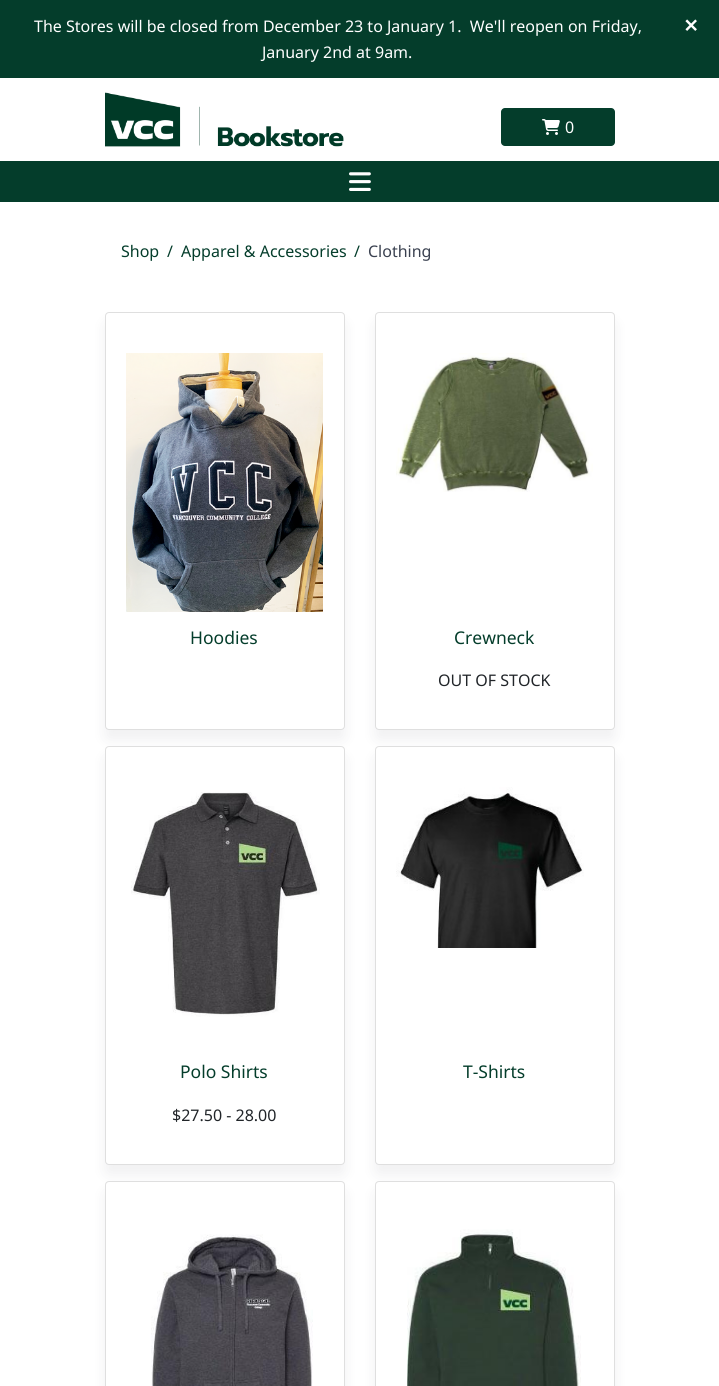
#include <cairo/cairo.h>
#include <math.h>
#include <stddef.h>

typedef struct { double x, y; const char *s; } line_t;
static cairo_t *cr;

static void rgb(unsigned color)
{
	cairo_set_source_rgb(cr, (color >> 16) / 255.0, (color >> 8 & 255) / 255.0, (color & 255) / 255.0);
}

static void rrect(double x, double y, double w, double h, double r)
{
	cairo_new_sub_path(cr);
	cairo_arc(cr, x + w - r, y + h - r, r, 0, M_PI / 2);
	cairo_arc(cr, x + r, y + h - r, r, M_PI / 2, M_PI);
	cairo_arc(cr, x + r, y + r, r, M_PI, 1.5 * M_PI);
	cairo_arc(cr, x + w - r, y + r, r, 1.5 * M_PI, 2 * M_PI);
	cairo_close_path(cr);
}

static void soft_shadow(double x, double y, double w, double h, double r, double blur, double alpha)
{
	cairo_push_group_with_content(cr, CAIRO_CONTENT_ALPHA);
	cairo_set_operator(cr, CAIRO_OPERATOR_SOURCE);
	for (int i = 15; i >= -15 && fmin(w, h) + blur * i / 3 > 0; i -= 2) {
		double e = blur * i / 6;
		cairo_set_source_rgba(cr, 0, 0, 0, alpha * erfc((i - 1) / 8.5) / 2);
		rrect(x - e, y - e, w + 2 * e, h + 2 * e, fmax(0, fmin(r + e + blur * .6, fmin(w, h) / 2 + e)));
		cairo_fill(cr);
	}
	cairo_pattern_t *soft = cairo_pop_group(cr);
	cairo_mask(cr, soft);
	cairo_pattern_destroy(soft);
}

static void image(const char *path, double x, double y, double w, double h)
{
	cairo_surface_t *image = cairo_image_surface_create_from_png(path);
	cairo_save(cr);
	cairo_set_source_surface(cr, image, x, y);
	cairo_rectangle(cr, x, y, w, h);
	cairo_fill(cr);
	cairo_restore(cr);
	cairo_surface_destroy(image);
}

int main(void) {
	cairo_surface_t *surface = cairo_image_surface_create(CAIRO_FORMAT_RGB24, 719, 1386);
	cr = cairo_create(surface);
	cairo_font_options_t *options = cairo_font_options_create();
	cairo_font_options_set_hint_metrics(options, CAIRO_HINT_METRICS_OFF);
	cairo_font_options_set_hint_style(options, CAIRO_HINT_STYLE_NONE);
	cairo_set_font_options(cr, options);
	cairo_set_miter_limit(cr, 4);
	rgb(0xffffff);
	cairo_paint(cr);
	rgb(0x043d2b);
	cairo_rectangle(cr, 0, 0, 719, 78);
	cairo_fill(cr);
	image("img/1.png", 105, 92, 239, 55);
	rrect(501, 108, 114, 38, 4);
	cairo_fill(cr);
	image("img/2.png", 542, 119, 18, 16);
	cairo_rectangle(cr, 0, 161, 719, 41);
	cairo_fill(cr);
	image("img/3.png", 349, 172, 22, 19);
	rgb(0x45495b);
	soft_shadow(105, 322, 240, 418, 4, 7, 0.08);
	rgb(0xffffff);
	rrect(105.5, 312.5, 239, 417, 3.5);
	cairo_fill_preserve(cr);
	rgb(0xdfdfdf);
	cairo_set_line_width(cr, 1);
	cairo_stroke(cr);
	image("img/4.png", 126, 353, 197, 259);
	rgb(0x45495b);
	soft_shadow(375, 322, 240, 418, 4, 7, 0.08);
	rgb(0xffffff);
	rrect(375.5, 312.5, 239, 417, 3.5);
	cairo_fill_preserve(cr);
	rgb(0xdfdfdf);
	cairo_stroke(cr);
	image("img/5.png", 396, 353, 197, 139);
	rgb(0x45495b);
	soft_shadow(105, 756, 240, 419, 4, 7, 0.08);
	rgb(0xffffff);
	rrect(105.5, 746.5, 239, 418, 3.5);
	cairo_fill_preserve(cr);
	rgb(0xdfdfdf);
	cairo_stroke(cr);
	image("img/6.png", 131, 792, 189, 225);
	rgb(0x45495b);
	soft_shadow(375, 756, 240, 419, 4, 7, 0.08);
	rgb(0xffffff);
	rrect(375.5, 746.5, 239, 418, 3.5);
	cairo_fill_preserve(cr);
	rgb(0xdfdfdf);
	cairo_stroke(cr);
	image("img/7.png", 396, 787, 188, 161);
	rgb(0x45495b);
	soft_shadow(105, 1191, 240, 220, 4, 7, 0.08);
	rgb(0xffffff);
	rrect(105.5, 1181.5, 239, 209, 3.5);
	cairo_fill_preserve(cr);
	rgb(0xdfdfdf);
	cairo_stroke(cr);
	image("img/8.png", 151, 1234, 162, 152);
	rgb(0x45495b);
	soft_shadow(375, 1191, 240, 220, 4, 7, 0.08);
	rgb(0xffffff);
	rrect(375.5, 1181.5, 239, 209, 3.5);
	cairo_fill_preserve(cr);
	rgb(0xdfdfdf);
	cairo_stroke(cr);
	image("img/9.png", 407, 1229, 174, 157);
	cairo_select_font_face(cr, "Noto Sans", CAIRO_FONT_SLANT_NORMAL, CAIRO_FONT_WEIGHT_NORMAL);
	cairo_set_font_size(cr, 16);
	rgb(0xffffff);
	cairo_move_to(cr, 34, 32);
	cairo_show_text(cr, "The Stores will be closed from December 23 to January 1.  We'll reopen on Friday,");
	cairo_move_to(cr, 262, 58);
	cairo_show_text(cr, "January 2nd at 9am.");
	cairo_select_font_face(cr, "Noto Sans", CAIRO_FONT_SLANT_NORMAL, CAIRO_FONT_WEIGHT_BOLD);
	cairo_set_font_size(cr, 24);
	cairo_move_to(cr, 684, 34);
	cairo_show_text(cr, "×");
	cairo_select_font_face(cr, "Noto Sans", CAIRO_FONT_SLANT_NORMAL, CAIRO_FONT_WEIGHT_NORMAL);
	cairo_set_font_size(cr, 16);
	cairo_move_to(cr, 565, 133);
	cairo_show_text(cr, "0");
	rgb(0x043d2b);
	{
		static const line_t items[] = {
			{121, 257, "Shop"},
			{167, 257, "/"},
			{181, 257, "Apparel & Accessories"},
			{354, 257, "/"},
		};
		for (size_t i = 0; i < sizeof items / sizeof *items; i++) {
			cairo_move_to(cr, items[i].x, items[i].y);
			cairo_show_text(cr, items[i].s);
		}
	}
	rgb(0x3a4150);
	cairo_move_to(cr, 368, 257);
	cairo_show_text(cr, "Clothing");
	cairo_set_font_size(cr, 17.5);
	rgb(0x043d2b);
	cairo_move_to(cr, 190, 644);
	cairo_show_text(cr, "Hoodies");
	cairo_move_to(cr, 454, 644);
	cairo_show_text(cr, "Crewneck");
	cairo_set_font_size(cr, 16);
	rgb(0x212529);
	cairo_move_to(cr, 438, 686);
	cairo_show_text(cr, "OUT OF STOCK");
	cairo_set_font_size(cr, 17.5);
	rgb(0x043d2b);
	cairo_move_to(cr, 180, 1078);
	cairo_show_text(cr, "Polo Shirts");
	cairo_set_font_size(cr, 16);
	rgb(0x212529);
	cairo_move_to(cr, 172, 1121);
	cairo_show_text(cr, "$27.50 - 28.00");
	cairo_set_font_size(cr, 17.5);
	rgb(0x043d2b);
	cairo_move_to(cr, 463, 1078);
	cairo_show_text(cr, "T-Shirts");
	cairo_surface_write_to_png(surface, "page.png");
	cairo_font_options_destroy(options);
	cairo_destroy(cr);
	cairo_surface_destroy(surface);
	return 0;
}
